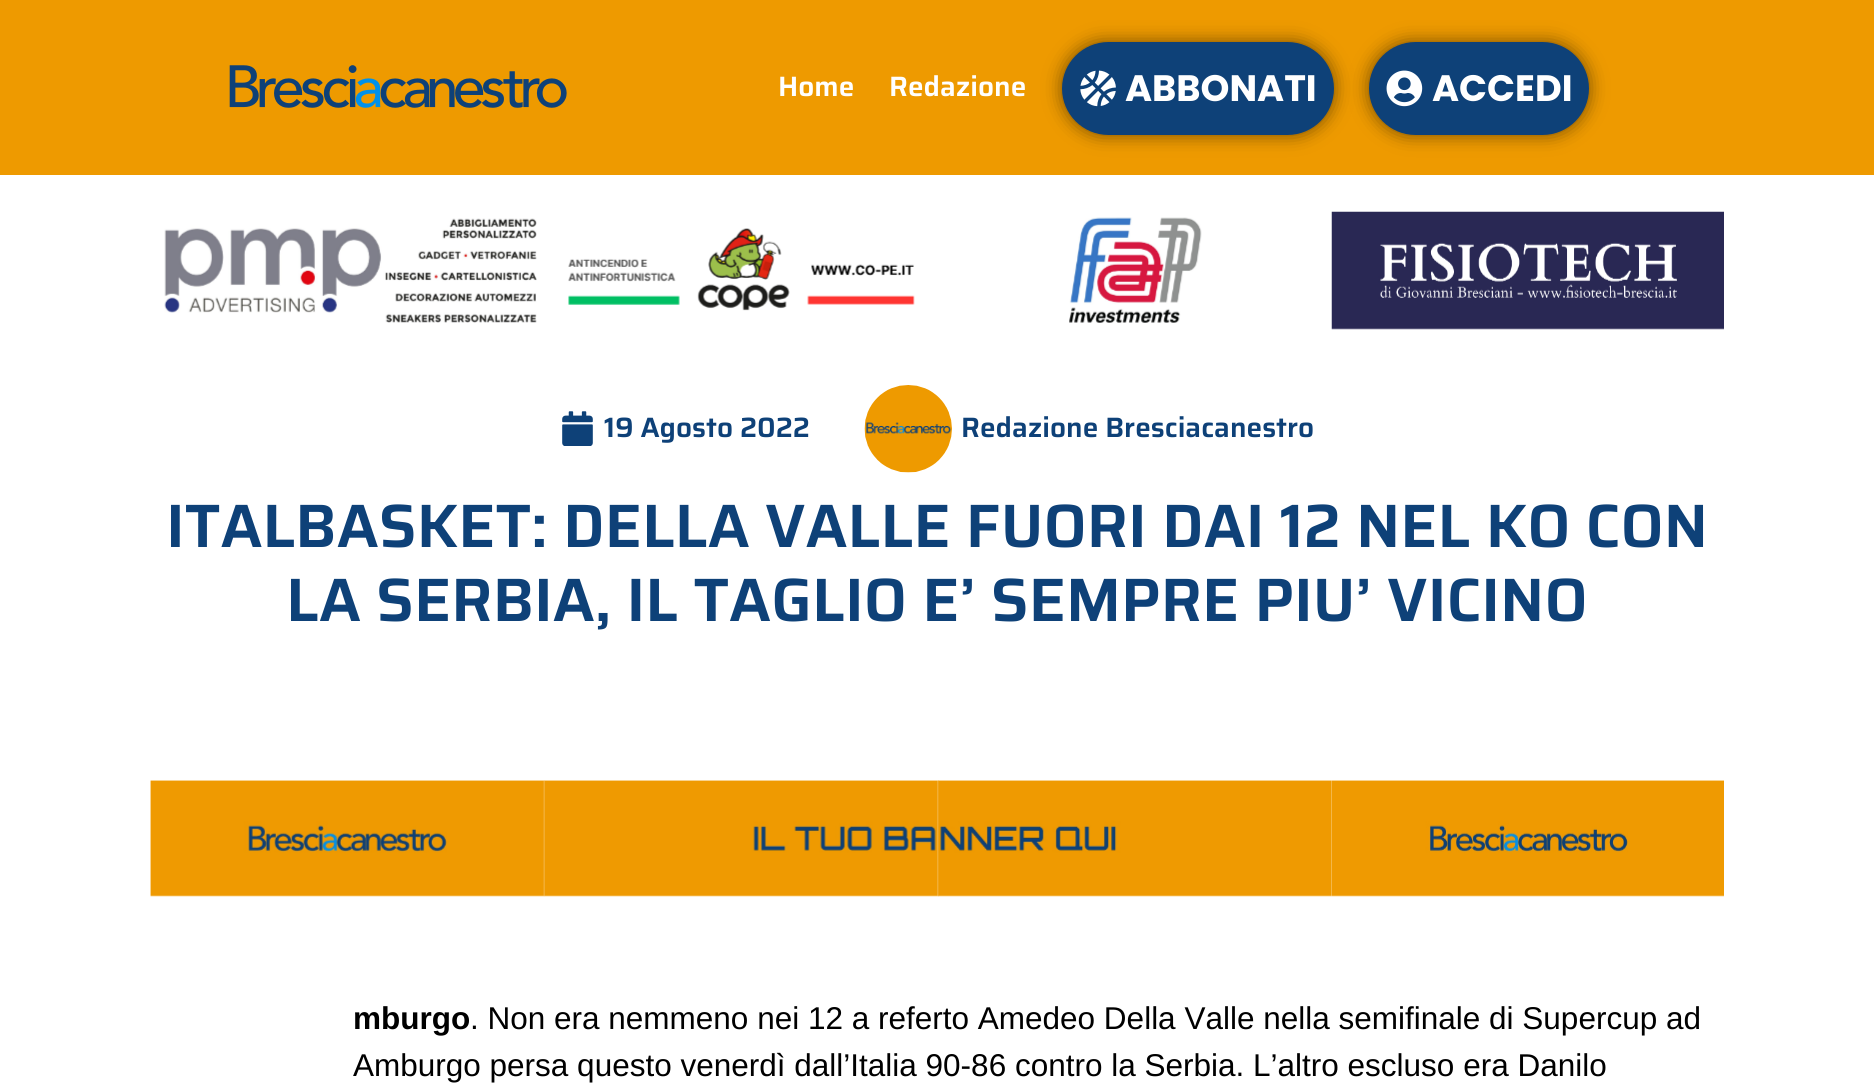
#include <cairo/cairo.h>
#include <math.h>
#include <stddef.h>

static cairo_t *cr;

static void rgb(unsigned color)
{
	cairo_set_source_rgb(cr, (color >> 16) / 255.0, (color >> 8 & 255) / 255.0, (color & 255) / 255.0);
}

static void rrect(double x, double y, double w, double h, double r)
{
	cairo_new_sub_path(cr);
	cairo_arc(cr, x + w - r, y + h - r, r, 0, M_PI / 2);
	cairo_arc(cr, x + r, y + h - r, r, M_PI / 2, M_PI);
	cairo_arc(cr, x + r, y + r, r, M_PI, 1.5 * M_PI);
	cairo_arc(cr, x + w - r, y + r, r, 1.5 * M_PI, 2 * M_PI);
	cairo_close_path(cr);
}

static void soft_shadow(double x, double y, double w, double h, double r, double blur, double alpha)
{
	cairo_push_group_with_content(cr, CAIRO_CONTENT_ALPHA);
	cairo_set_operator(cr, CAIRO_OPERATOR_SOURCE);
	for (int i = 15; i >= -15 && fmin(w, h) + blur * i / 3 > 0; i -= 2) {
		double e = blur * i / 6;
		cairo_set_source_rgba(cr, 0, 0, 0, alpha * erfc((i - 1) / 8.5) / 2);
		rrect(x - e, y - e, w + 2 * e, h + 2 * e, fmax(0, fmin(r + e + blur * .6, fmin(w, h) / 2 + e)));
		cairo_fill(cr);
	}
	cairo_pattern_t *soft = cairo_pop_group(cr);
	cairo_mask(cr, soft);
	cairo_pattern_destroy(soft);
}

static void image(const char *path, double x, double y, double w, double h)
{
	cairo_surface_t *image = cairo_image_surface_create_from_png(path);
	cairo_save(cr);
	cairo_set_source_surface(cr, image, x, y);
	cairo_rectangle(cr, x, y, w, h);
	cairo_fill(cr);
	cairo_restore(cr);
	cairo_surface_destroy(image);
}

int main(void) {
	cairo_surface_t *surface = cairo_image_surface_create(CAIRO_FORMAT_RGB24, 1874, 1083);
	cr = cairo_create(surface);
	cairo_font_options_t *options = cairo_font_options_create();
	cairo_font_options_set_hint_metrics(options, CAIRO_HINT_METRICS_OFF);
	cairo_font_options_set_hint_style(options, CAIRO_HINT_STYLE_NONE);
	cairo_set_font_options(cr, options);
	cairo_set_miter_limit(cr, 4);
	rgb(0xffffff);
	cairo_paint(cr);
	rgb(0xee9a00);
	cairo_rectangle(cr, 0, 0, 1874, 175);
	cairo_fill(cr);
	image("img/1.png", 229, 65, 338, 43);
	rgb(0x000000);
	soft_shadow(1062, 42, 272, 93, 46.5, 9, 0.5);
	rgb(0x0e4178);
	rrect(1062, 42, 272, 93, 46.5);
	cairo_fill(cr);
	image("img/2.png", 1080, 70, 36, 37);
	rgb(0x000000);
	soft_shadow(1369, 42, 220, 93, 46.5, 9, 0.5);
	rgb(0x0e4178);
	rrect(1369, 42, 220, 93, 46.5);
	cairo_fill(cr);
	image("img/3.png", 1386, 70, 37, 37);
	image("img/4.png", 164, 218, 373, 105);
	image("img/5.png", 568, 228, 347, 83);
	image("img/6.png", 1069, 217, 133, 106);
	image("img/7.png", 1331, 211, 393, 119);
	image("img/8.png", 562, 411, 31, 35);
	image("img/9.png", 864, 385, 88, 88);
	image("img/10.png", 150, 780, 395, 117);
	image("img/11.png", 543, 780, 396, 117);
	image("img/12.png", 937, 780, 395, 117);
	image("img/13.png", 1331, 780, 393, 117);
	cairo_select_font_face(cr, "Saira SemiBold", CAIRO_FONT_SLANT_NORMAL, CAIRO_FONT_WEIGHT_NORMAL);
	cairo_set_font_size(cr, 28);
	rgb(0xffffff);
	cairo_move_to(cr, 778, 96);
	cairo_show_text(cr, "Home");
	cairo_move_to(cr, 889, 96);
	cairo_show_text(cr, "Redazione");
	cairo_select_font_face(cr, "Poppins", CAIRO_FONT_SLANT_NORMAL, CAIRO_FONT_WEIGHT_BOLD);
	cairo_set_font_size(cr, 36.75);
	cairo_move_to(cr, 1125, 101);
	cairo_show_text(cr, "ABBONATI");
	cairo_move_to(cr, 1432, 101);
	cairo_show_text(cr, "ACCEDI");
	cairo_select_font_face(cr, "Saira SemiBold", CAIRO_FONT_SLANT_NORMAL, CAIRO_FONT_WEIGHT_NORMAL);
	cairo_set_font_size(cr, 28);
	rgb(0x0e4178);
	cairo_move_to(cr, 604, 437);
	cairo_show_text(cr, "19 Agosto 2022");
	cairo_move_to(cr, 961, 437);
	cairo_show_text(cr, "Redazione Bresciacanestro");
	cairo_set_font_size(cr, 61.25);
	cairo_move_to(cr, 166, 547);
	cairo_show_text(cr, "ITALBASKET: DELLA VALLE FUORI DAI 12 NEL KO CON");
	cairo_move_to(cr, 286, 621);
	cairo_show_text(cr, "LA SERBIA, IL TAGLIO E’ SEMPRE PIU’ VICINO");
	cairo_select_font_face(cr, "Liberation Sans", CAIRO_FONT_SLANT_NORMAL, CAIRO_FONT_WEIGHT_BOLD);
	cairo_set_font_size(cr, 31.5);
	rgb(0x000000);
	cairo_move_to(cr, 353, 1029);
	cairo_show_text(cr, "mburgo");
	cairo_select_font_face(cr, "Liberation Sans", CAIRO_FONT_SLANT_NORMAL, CAIRO_FONT_WEIGHT_NORMAL);
	cairo_move_to(cr, 470, 1029);
	cairo_show_text(cr, ". Non era nemmeno nei 12 a referto Amedeo Della Valle nella semifinale di Supercup ad");
	cairo_move_to(cr, 353, 1076);
	cairo_show_text(cr, "Amburgo persa questo venerdì dall’Italia 90-86 contro la Serbia. L’altro escluso era Danilo");
	cairo_surface_write_to_png(surface, "page.png");
	cairo_font_options_destroy(options);
	cairo_destroy(cr);
	cairo_surface_destroy(surface);
	return 0;
}
